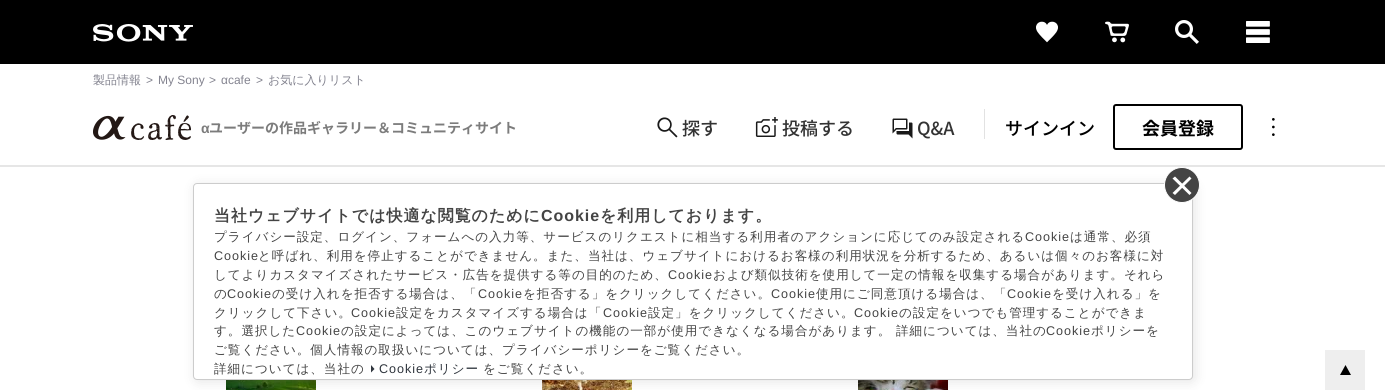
#include <cairo/cairo.h>
#include <math.h>
#include <stddef.h>

typedef struct { double x, y; const char *s; } line_t;
static cairo_t *cr;

static void rgb(unsigned color)
{
	cairo_set_source_rgb(cr, (color >> 16) / 255.0, (color >> 8 & 255) / 255.0, (color & 255) / 255.0);
}

static void tracked(double x, double y, const char *s, double letter, double word)
{
	cairo_move_to(cr, x, y);
	while (*s) {
		char ch[5] = {0};
		int n = 0;
		do ch[n++] = *s++; while ((*s & 0xC0) == 0x80);
		cairo_show_text(cr, ch);
		cairo_rel_move_to(cr, letter + word * (*ch == ' '), 0);
	}
}

static void rrect(double x, double y, double w, double h, double r)
{
	cairo_new_sub_path(cr);
	cairo_arc(cr, x + w - r, y + h - r, r, 0, M_PI / 2);
	cairo_arc(cr, x + r, y + h - r, r, M_PI / 2, M_PI);
	cairo_arc(cr, x + r, y + r, r, M_PI, 1.5 * M_PI);
	cairo_arc(cr, x + w - r, y + r, r, 1.5 * M_PI, 2 * M_PI);
	cairo_close_path(cr);
}

static void soft_shadow(double x, double y, double w, double h, double r, double blur, double alpha)
{
	cairo_push_group_with_content(cr, CAIRO_CONTENT_ALPHA);
	cairo_set_operator(cr, CAIRO_OPERATOR_SOURCE);
	for (int i = 15; i >= -15 && fmin(w, h) + blur * i / 3 > 0; i -= 2) {
		double e = blur * i / 6;
		cairo_set_source_rgba(cr, 0, 0, 0, alpha * erfc((i - 1) / 8.5) / 2);
		rrect(x - e, y - e, w + 2 * e, h + 2 * e, fmax(0, fmin(r + e + blur * .6, fmin(w, h) / 2 + e)));
		cairo_fill(cr);
	}
	cairo_pattern_t *soft = cairo_pop_group(cr);
	cairo_mask(cr, soft);
	cairo_pattern_destroy(soft);
}

static void image(const char *path, double x, double y, double w, double h)
{
	cairo_surface_t *image = cairo_image_surface_create_from_png(path);
	cairo_save(cr);
	cairo_set_source_surface(cr, image, x, y);
	cairo_rectangle(cr, x, y, w, h);
	cairo_fill(cr);
	cairo_restore(cr);
	cairo_surface_destroy(image);
}

int main(void) {
	cairo_surface_t *surface = cairo_image_surface_create(CAIRO_FORMAT_RGB24, 1385, 390);
	cr = cairo_create(surface);
	cairo_font_options_t *options = cairo_font_options_create();
	cairo_font_options_set_hint_metrics(options, CAIRO_HINT_METRICS_OFF);
	cairo_font_options_set_hint_style(options, CAIRO_HINT_STYLE_NONE);
	cairo_set_font_options(cr, options);
	cairo_set_miter_limit(cr, 4);
	rgb(0xffffff);
	cairo_paint(cr);
	rgb(0x000000);
	cairo_rectangle(cr, 0, 0, 1385, 64);
	cairo_fill(cr);
	image("img/1.png", 93, 24, 100, 18);
	image("img/2.png", 1036, 21, 22, 22);
	image("img/3.png", 1105, 21, 24, 22);
	image("img/4.png", 1175, 20, 24, 24);
	image("img/5.png", 1246, 21, 24, 22);
	rgb(0xe6e6e6);
	cairo_rectangle(cr, 0, 165, 1385, 2);
	cairo_fill(cr);
	image("img/6.png", 93, 115, 98, 25);
	image("img/7.png", 657, 117, 21, 21);
	image("img/8.png", 755, 117, 23, 20);
	image("img/9.png", 892, 118, 21, 21);
	rgb(0xe2e2e2);
	cairo_rectangle(cr, 984, 109, 1, 30);
	cairo_fill(cr);
	rrect(1114, 105, 128, 44, 2);
	rgb(0x000000);
	cairo_stroke(cr);
	image("img/10.png", 1272, 118, 3, 18);
	image("img/11.png", 226, 380, 90, 10);
	image("img/12.png", 542, 380, 90, 10);
	image("img/13.png", 858, 380, 90, 10);
	image("img/14.png", 1325, 350, 40, 40);
	rgb(0x000000);
	soft_shadow(195, 185, 1000, 197, 4, 6, 0.1);
	rgb(0xffffff);
	rrect(193.5, 183.5, 999, 196, 3.5);
	cairo_fill_preserve(cr);
	rgb(0xcccccc);
	cairo_set_line_width(cr, 1);
	cairo_stroke(cr);
	rgb(0x444444);
	cairo_arc(cr, 1182, 185, 17.5, 0, 2 * M_PI);
	cairo_fill_preserve(cr);
	rgb(0xffffff);
	cairo_stroke(cr);
	cairo_new_path(cr);
	cairo_move_to(cr, 1172.5, 193);
	cairo_line_to(cr, 1189.5, 176.5);
	cairo_line_to(cr, 1191.5, 178.5);
	cairo_line_to(cr, 1175, 195);
	cairo_close_path(cr);
	cairo_fill(cr);
	cairo_new_path(cr);
	cairo_move_to(cr, 1175, 176.5);
	cairo_line_to(cr, 1191.5, 193);
	cairo_line_to(cr, 1189.5, 195);
	cairo_line_to(cr, 1172.5, 178.5);
	cairo_close_path(cr);
	cairo_fill(cr);
	rgb(0x2f353d);
	cairo_new_path(cr);
	cairo_move_to(cr, 371, 365);
	cairo_line_to(cr, 374.5, 369);
	cairo_line_to(cr, 371, 372.5);
	cairo_close_path(cr);
	cairo_fill(cr);
	cairo_select_font_face(cr, "WenQuanYi Zen Hei Medium", CAIRO_FONT_SLANT_NORMAL, CAIRO_FONT_WEIGHT_NORMAL);
	cairo_set_font_size(cr, 12);
	rgb(0x83838f);
	cairo_move_to(cr, 93, 84);
	cairo_show_text(cr, "製品情報");
	cairo_select_font_face(cr, "Liberation Sans", CAIRO_FONT_SLANT_NORMAL, CAIRO_FONT_WEIGHT_NORMAL);
	{
		static const line_t items[] = {
			{146, 84, ">"},
			{158, 84, "My Sony"},
			{209, 84, ">"},
			{221, 84, "αcafe"},
			{256, 84, ">"},
		};
		for (size_t i = 0; i < sizeof items / sizeof *items; i++) {
			cairo_move_to(cr, items[i].x, items[i].y);
			cairo_show_text(cr, items[i].s);
		}
	}
	cairo_select_font_face(cr, "WenQuanYi Zen Hei Medium", CAIRO_FONT_SLANT_NORMAL, CAIRO_FONT_WEIGHT_NORMAL);
	cairo_move_to(cr, 268, 84);
	cairo_show_text(cr, "お気に入りリスト");
	cairo_select_font_face(cr, "Liberation Sans", CAIRO_FONT_SLANT_NORMAL, CAIRO_FONT_WEIGHT_BOLD);
	cairo_set_font_size(cr, 14);
	rgb(0x7c7c7c);
	cairo_move_to(cr, 201, 133);
	cairo_show_text(cr, "α");
	cairo_select_font_face(cr, "Noto Sans JP", CAIRO_FONT_SLANT_NORMAL, CAIRO_FONT_WEIGHT_BOLD);
	cairo_move_to(cr, 209, 133);
	cairo_show_text(cr, "ユーザーの作品ギャラリー＆コミュニティサイト");
	cairo_select_font_face(cr, "Noto Sans JP Medium", CAIRO_FONT_SLANT_NORMAL, CAIRO_FONT_WEIGHT_NORMAL);
	cairo_set_font_size(cr, 18);
	rgb(0x333333);
	{
		static const line_t items[] = {
			{682, 135, "探す"},
			{782, 135, "投稿する"},
			{917, 135, "Q&A"},
		};
		for (size_t i = 0; i < sizeof items / sizeof *items; i++) {
			cairo_move_to(cr, items[i].x, items[i].y);
			cairo_show_text(cr, items[i].s);
		}
	}
	rgb(0x000000);
	cairo_move_to(cr, 1005, 135);
	cairo_show_text(cr, "サインイン");
	cairo_select_font_face(cr, "Noto Sans JP", CAIRO_FONT_SLANT_NORMAL, CAIRO_FONT_WEIGHT_BOLD);
	cairo_move_to(cr, 1142, 135);
	cairo_show_text(cr, "会員登録");
	cairo_select_font_face(cr, "WenQuanYi Zen Hei", CAIRO_FONT_SLANT_NORMAL, CAIRO_FONT_WEIGHT_BOLD);
	cairo_set_font_size(cr, 16);
	rgb(0x444444);
	tracked(214, 221, "当社ウェブサイトでは快適な閲覧のために", 0.95, 0);
	cairo_select_font_face(cr, "Liberation Sans", CAIRO_FONT_SLANT_NORMAL, CAIRO_FONT_WEIGHT_BOLD);
	tracked(541, 221, "Cookie", 0.95, 0);
	cairo_select_font_face(cr, "WenQuanYi Zen Hei", CAIRO_FONT_SLANT_NORMAL, CAIRO_FONT_WEIGHT_BOLD);
	tracked(600, 221, "を利用しております。", 0.95, 0);
	cairo_select_font_face(cr, "WenQuanYi Zen Hei Medium", CAIRO_FONT_SLANT_NORMAL, CAIRO_FONT_WEIGHT_NORMAL);
	cairo_set_font_size(cr, 12.6);
	tracked(214, 241, "プライバシー設定、ログイン、フォームへの入力等、サービスのリクエストに相当する利用者のアクションに応じてのみ設定される", 0.95, 0);
	cairo_select_font_face(cr, "Liberation Sans", CAIRO_FONT_SLANT_NORMAL, CAIRO_FONT_WEIGHT_NORMAL);
	tracked(1025, 241, "Cookie", 0.95, 0);
	cairo_select_font_face(cr, "WenQuanYi Zen Hei Medium", CAIRO_FONT_SLANT_NORMAL, CAIRO_FONT_WEIGHT_NORMAL);
	tracked(1070, 241, "は通常、必須", 0.95, 0);
	cairo_select_font_face(cr, "Liberation Sans", CAIRO_FONT_SLANT_NORMAL, CAIRO_FONT_WEIGHT_NORMAL);
	tracked(214, 260, "Cookie", 0.95, 0);
	cairo_select_font_face(cr, "WenQuanYi Zen Hei Medium", CAIRO_FONT_SLANT_NORMAL, CAIRO_FONT_WEIGHT_NORMAL);
	tracked(258, 260, "と呼ばれ、利用を停止することができません。また、当社は、ウェブサイトにおけるお客様の利用状況を分析するため、あるいは個々のお客様に対", 0.95, 0);
	tracked(214, 279, "してよりカスタマイズされたサービス・広告を提供する等の目的のため、", 0.95, 0);
	cairo_select_font_face(cr, "Liberation Sans", CAIRO_FONT_SLANT_NORMAL, CAIRO_FONT_WEIGHT_NORMAL);
	tracked(668, 279, "Cookie", 0.95, 0);
	cairo_select_font_face(cr, "WenQuanYi Zen Hei Medium", CAIRO_FONT_SLANT_NORMAL, CAIRO_FONT_WEIGHT_NORMAL);
	tracked(713, 279, "および類似技術を使用して一定の情報を収集する場合があります。それら", 0.95, 0);
	tracked(214, 298, "の", 0.95, 0);
	cairo_select_font_face(cr, "Liberation Sans", CAIRO_FONT_SLANT_NORMAL, CAIRO_FONT_WEIGHT_NORMAL);
	tracked(227, 298, "Cookie", 0.95, 0);
	cairo_select_font_face(cr, "WenQuanYi Zen Hei Medium", CAIRO_FONT_SLANT_NORMAL, CAIRO_FONT_WEIGHT_NORMAL);
	tracked(272, 298, "の受け入れを拒否する場合は、「", 0.95, 0);
	cairo_select_font_face(cr, "Liberation Sans", CAIRO_FONT_SLANT_NORMAL, CAIRO_FONT_WEIGHT_NORMAL);
	tracked(478, 298, "Cookie", 0.95, 0);
	cairo_select_font_face(cr, "WenQuanYi Zen Hei Medium", CAIRO_FONT_SLANT_NORMAL, CAIRO_FONT_WEIGHT_NORMAL);
	tracked(523, 298, "を拒否する」をクリックしてください。", 0.95, 0);
	cairo_select_font_face(cr, "Liberation Sans", CAIRO_FONT_SLANT_NORMAL, CAIRO_FONT_WEIGHT_NORMAL);
	tracked(771, 298, "Cookie", 0.95, 0);
	cairo_select_font_face(cr, "WenQuanYi Zen Hei Medium", CAIRO_FONT_SLANT_NORMAL, CAIRO_FONT_WEIGHT_NORMAL);
	tracked(816, 298, "使用にご同意頂ける場合は、「", 0.95, 0);
	cairo_select_font_face(cr, "Liberation Sans", CAIRO_FONT_SLANT_NORMAL, CAIRO_FONT_WEIGHT_NORMAL);
	tracked(1007, 298, "Cookie", 0.95, 0);
	cairo_select_font_face(cr, "WenQuanYi Zen Hei Medium", CAIRO_FONT_SLANT_NORMAL, CAIRO_FONT_WEIGHT_NORMAL);
	tracked(1052, 298, "を受け入れる」を", 0.95, 0);
	tracked(214, 317, "クリックして下さい。", 0.95, 0);
	cairo_select_font_face(cr, "Liberation Sans", CAIRO_FONT_SLANT_NORMAL, CAIRO_FONT_WEIGHT_NORMAL);
	tracked(351, 317, "Cookie", 0.95, 0);
	cairo_select_font_face(cr, "WenQuanYi Zen Hei Medium", CAIRO_FONT_SLANT_NORMAL, CAIRO_FONT_WEIGHT_NORMAL);
	tracked(396, 317, "設定をカスタマイズする場合は「", 0.95, 0);
	cairo_select_font_face(cr, "Liberation Sans", CAIRO_FONT_SLANT_NORMAL, CAIRO_FONT_WEIGHT_NORMAL);
	tracked(603, 317, "Cookie", 0.95, 0);
	cairo_select_font_face(cr, "WenQuanYi Zen Hei Medium", CAIRO_FONT_SLANT_NORMAL, CAIRO_FONT_WEIGHT_NORMAL);
	tracked(648, 317, "設定」をクリックしてください。", 0.95, 0);
	cairo_select_font_face(cr, "Liberation Sans", CAIRO_FONT_SLANT_NORMAL, CAIRO_FONT_WEIGHT_NORMAL);
	tracked(854, 317, "Cookie", 0.95, 0);
	cairo_select_font_face(cr, "WenQuanYi Zen Hei Medium", CAIRO_FONT_SLANT_NORMAL, CAIRO_FONT_WEIGHT_NORMAL);
	tracked(899, 317, "の設定をいつでも管理することができま", 0.95, 0);
	tracked(214, 335, "す。選択した", 0.95, 0);
	cairo_select_font_face(cr, "Liberation Sans", CAIRO_FONT_SLANT_NORMAL, CAIRO_FONT_WEIGHT_NORMAL);
	tracked(296, 335, "Cookie", 0.95, 0);
	cairo_select_font_face(cr, "WenQuanYi Zen Hei Medium", CAIRO_FONT_SLANT_NORMAL, CAIRO_FONT_WEIGHT_NORMAL);
	tracked(341, 335, "の設定によっては、このウェブサイトの機能の一部が使用できなくなる場合があります。", 0.95, 0);
	tracked(896, 335, "詳細については、当社の", 0.95, 0);
	cairo_select_font_face(cr, "Liberation Sans", CAIRO_FONT_SLANT_NORMAL, CAIRO_FONT_WEIGHT_NORMAL);
	tracked(1046, 335, "Cookie", 0.95, 0);
	cairo_select_font_face(cr, "WenQuanYi Zen Hei Medium", CAIRO_FONT_SLANT_NORMAL, CAIRO_FONT_WEIGHT_NORMAL);
	{
		static const line_t items[] = {
			{1091, 335, "ポリシーを"},
			{214, 354, "ご覧ください。個人情報の取扱いについては、プライバシーポリシーをご覧ください。"},
			{214, 373, "詳細については、当社の"},
		};
		for (size_t i = 0; i < sizeof items / sizeof *items; i++) {
			tracked(items[i].x, items[i].y, items[i].s, 0.95, 0);
		}
	}
	cairo_select_font_face(cr, "Liberation Sans", CAIRO_FONT_SLANT_NORMAL, CAIRO_FONT_WEIGHT_NORMAL);
	rgb(0x2f353d);
	tracked(379, 373, "Cookie", 0.95, 0);
	cairo_select_font_face(cr, "WenQuanYi Zen Hei Medium", CAIRO_FONT_SLANT_NORMAL, CAIRO_FONT_WEIGHT_NORMAL);
	tracked(424, 373, "ポリシー", 0.95, 0);
	rgb(0x444444);
	tracked(483, 373, "をご覧ください。", 0.95, 0);
	cairo_surface_write_to_png(surface, "page.png");
	cairo_font_options_destroy(options);
	cairo_destroy(cr);
	cairo_surface_destroy(surface);
	return 0;
}
